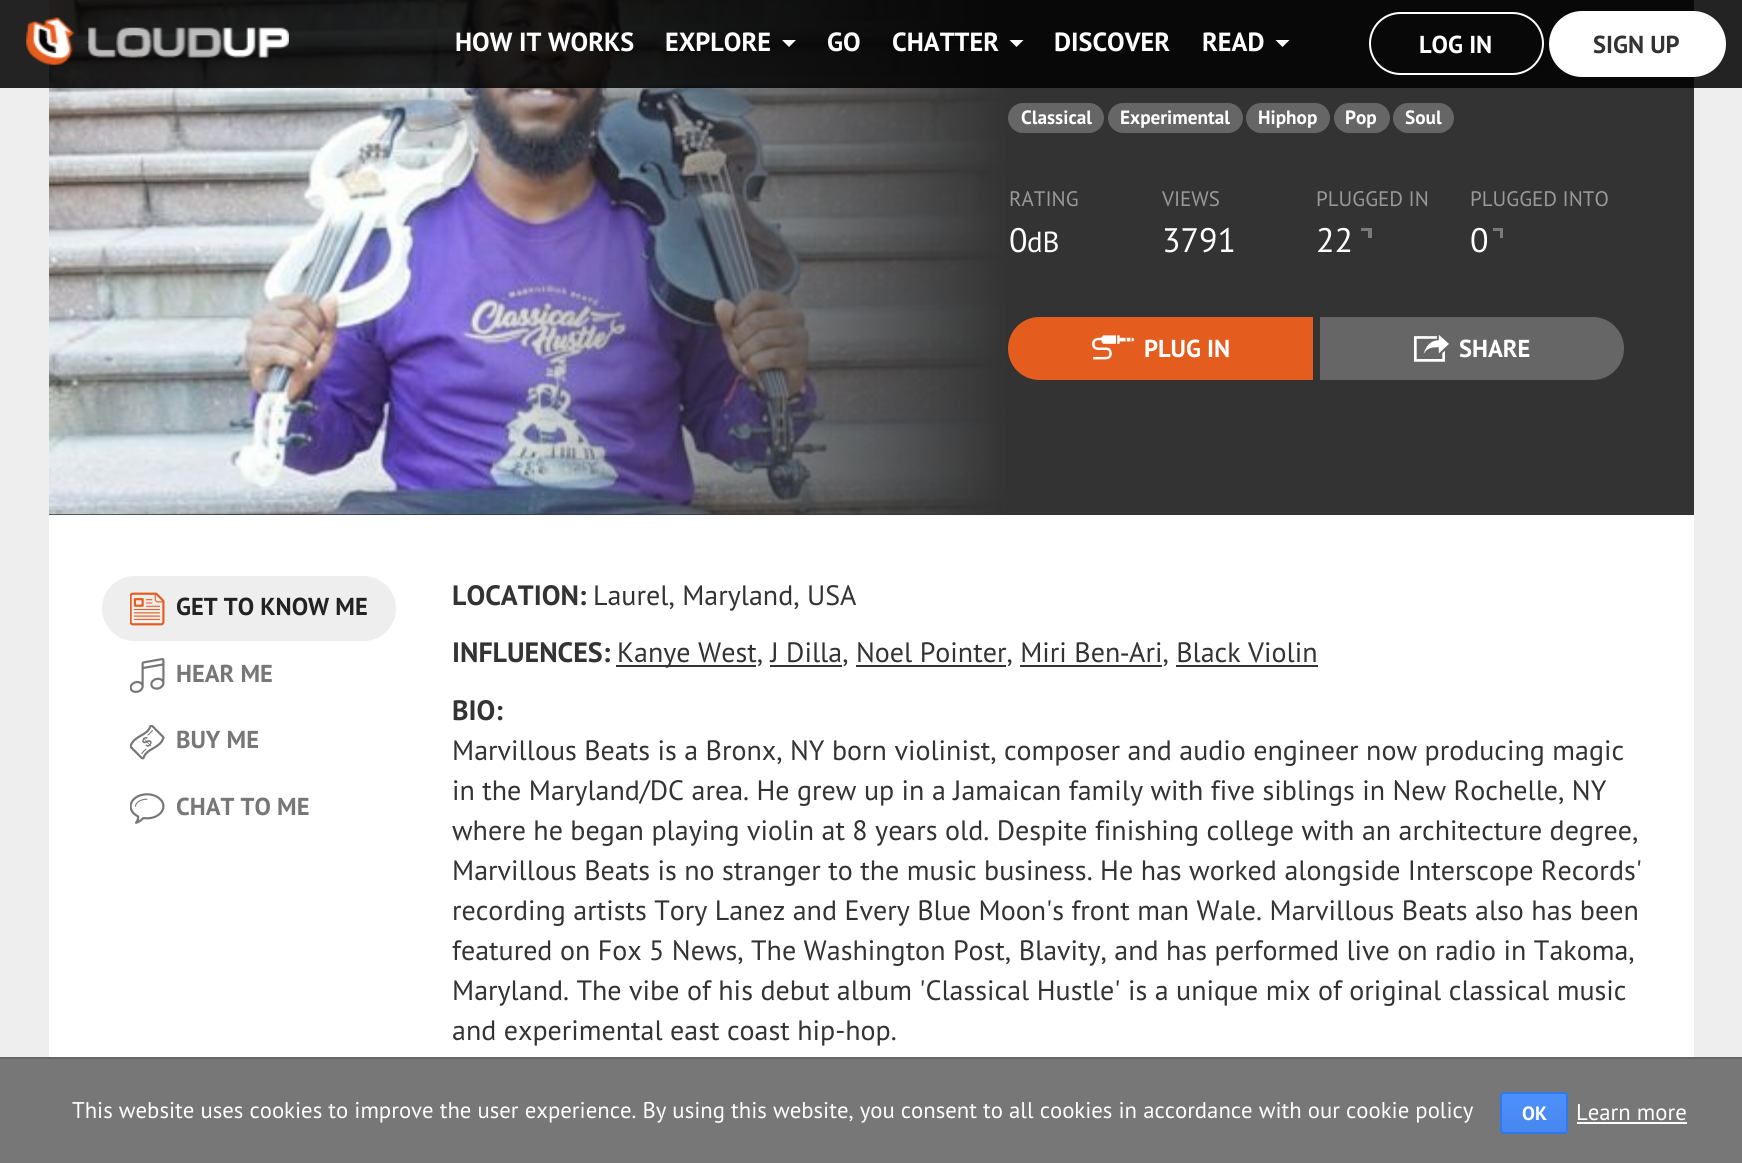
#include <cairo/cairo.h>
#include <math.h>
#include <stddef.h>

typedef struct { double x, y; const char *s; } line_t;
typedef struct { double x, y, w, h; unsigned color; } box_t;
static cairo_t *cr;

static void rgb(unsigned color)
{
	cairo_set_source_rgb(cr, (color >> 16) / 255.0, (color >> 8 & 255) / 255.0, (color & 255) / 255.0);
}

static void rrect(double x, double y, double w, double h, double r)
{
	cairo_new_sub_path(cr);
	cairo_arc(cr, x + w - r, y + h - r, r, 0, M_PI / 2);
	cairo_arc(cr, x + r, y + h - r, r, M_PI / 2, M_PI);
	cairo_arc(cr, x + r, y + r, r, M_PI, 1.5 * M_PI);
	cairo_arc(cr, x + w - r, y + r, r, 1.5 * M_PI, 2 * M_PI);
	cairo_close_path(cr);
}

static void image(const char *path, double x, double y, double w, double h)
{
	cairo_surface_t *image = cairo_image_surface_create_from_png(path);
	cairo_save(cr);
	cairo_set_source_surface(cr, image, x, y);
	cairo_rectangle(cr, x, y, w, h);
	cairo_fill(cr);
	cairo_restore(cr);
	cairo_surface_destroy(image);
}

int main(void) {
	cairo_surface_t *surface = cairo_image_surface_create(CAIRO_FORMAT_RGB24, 1742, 1163);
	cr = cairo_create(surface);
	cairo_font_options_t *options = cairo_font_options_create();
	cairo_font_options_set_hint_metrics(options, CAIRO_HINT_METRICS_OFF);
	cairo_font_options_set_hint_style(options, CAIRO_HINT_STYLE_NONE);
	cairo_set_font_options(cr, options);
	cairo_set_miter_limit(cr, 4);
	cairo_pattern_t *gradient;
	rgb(0xeeeeee);
	cairo_paint(cr);
	rgb(0x333333);
	cairo_rectangle(cr, 49, 0, 1645, 515);
	cairo_fill(cr);
	image("img/2.png", 49, 0, 956, 515);
	gradient = cairo_pattern_create_linear(432, 195, 1008, 195);
	cairo_pattern_add_color_stop_rgba(gradient, 0, 0.2, 0.2, 0.2, 0);
	cairo_pattern_add_color_stop_rgba(gradient, 1, 0.2, 0.2, 0.2, 1);
	cairo_set_source(cr, gradient);
	cairo_pattern_destroy(gradient);
	cairo_rectangle(cr, 444, 0, 561, 515);
	cairo_fill(cr);
	cairo_set_source_rgba(cr, 0, 0, 0, 0.85);
	cairo_rectangle(cr, 0, 0, 1742, 88);
	cairo_fill(cr);
	image("img/1.png", 26, 17, 263, 48);
	rgb(0xffffff);
	cairo_new_path(cr);
	cairo_move_to(cr, 782, 40);
	cairo_line_to(cr, 796, 40);
	cairo_line_to(cr, 789, 47);
	cairo_close_path(cr);
	cairo_fill(cr);
	cairo_new_path(cr);
	cairo_move_to(cr, 1009.5, 40);
	cairo_line_to(cr, 1023.5, 40);
	cairo_line_to(cr, 1016.5, 47);
	cairo_close_path(cr);
	cairo_fill(cr);
	cairo_new_path(cr);
	cairo_move_to(cr, 1275.5, 40);
	cairo_line_to(cr, 1289.5, 40);
	cairo_line_to(cr, 1282.5, 47);
	cairo_close_path(cr);
	cairo_fill(cr);
	rrect(1370, 13, 173, 61, 30.5);
	cairo_stroke(cr);
	rrect(1549, 11, 177, 66, 33);
	cairo_fill(cr);
	rgb(0x666666);
	rrect(1008, 103, 96, 30, 15);
	cairo_fill(cr);
	rrect(1108, 103, 135, 30, 15);
	cairo_fill(cr);
	rrect(1246, 103, 84, 30, 15);
	cairo_fill(cr);
	rrect(1334, 103, 56, 30, 15);
	cairo_fill(cr);
	rrect(1393, 103, 61, 30, 15);
	cairo_fill(cr);
	{
		static const box_t items[] = {
			{1361, 228, 11, 3, 0x7a7a7a},
			{1368, 228, 4, 10, 0x7a7a7a},
			{1493, 228, 10, 3, 0x7a7a7a},
			{1500, 228, 3, 10, 0x7a7a7a},
		};
		for (size_t i = 0; i < sizeof items / sizeof *items; i++) {
			rgb(items[i].color);
			cairo_rectangle(cr, items[i].x, items[i].y, items[i].w, items[i].h);
			cairo_fill(cr);
		}
	}
	rgb(0xe55d1e);
	cairo_new_path(cr);
	cairo_move_to(cr, 1039.5, 317);
	cairo_line_to(cr, 1316, 317);
	cairo_line_to(cr, 1316, 380);
	cairo_line_to(cr, 1039.5, 380);
	cairo_curve_to(cr, 1022, 380, 1008, 366, 1008, 348.5);
	cairo_curve_to(cr, 1008, 331, 1022, 317, 1039.5, 317);
	cairo_close_path(cr);
	cairo_fill(cr);
	rgb(0x333333);
	cairo_rectangle(cr, 1313, 317, 3, 63);
	cairo_fill(cr);
	image("img/3.png", 1092, 335, 42, 25);
	rgb(0x666666);
	cairo_new_path(cr);
	cairo_move_to(cr, 1316, 317);
	cairo_line_to(cr, 1592.5, 317);
	cairo_curve_to(cr, 1610, 317, 1624, 331, 1624, 348.5);
	cairo_curve_to(cr, 1624, 366, 1610, 380, 1592.5, 380);
	cairo_line_to(cr, 1316, 380);
	cairo_close_path(cr);
	cairo_fill(cr);
	rgb(0x333333);
	cairo_rectangle(cr, 1316, 317, 4, 63);
	cairo_fill(cr);
	image("img/4.png", 1414, 335, 35, 27);
	rgb(0xffffff);
	cairo_rectangle(cr, 49, 515, 1645, 542);
	cairo_fill(cr);
	rgb(0xeeeeee);
	rrect(102, 576, 294, 65, 32.5);
	cairo_fill(cr);
	image("img/5.png", 130, 592, 35, 34);
	image("img/6.png", 130, 658, 35, 35);
	image("img/7.png", 130, 725, 35, 35);
	image("img/8.png", 130, 793, 35, 31);
	{
		static const box_t items[] = {
			{616, 665, 140, 2, 0x333333},
			{1020, 665, 142, 2, 0x333333},
			{770, 665, 72, 2, 0x333333},
			{856, 665, 150, 2, 0x333333},
			{1176, 665, 142, 2, 0x333333},
			{0, 1059, 1742, 104, 0x777777},
			{0, 1057, 1742, 2, 0x666666},
		};
		for (size_t i = 0; i < sizeof items / sizeof *items; i++) {
			rgb(items[i].color);
			cairo_rectangle(cr, items[i].x, items[i].y, items[i].w, items[i].h);
			cairo_fill(cr);
		}
	}
	cairo_save(cr);
	rrect(1500, 1092, 68, 42, 4);
	cairo_clip(cr);
	gradient = cairo_pattern_create_linear(1534, 1094, 1534, 1132);
	cairo_pattern_add_color_stop_rgba(gradient, 0, 0.302, 0.565, 0.996, 1);
	cairo_pattern_add_color_stop_rgba(gradient, 1, 0.278, 0.529, 0.929, 1);
	cairo_set_source(cr, gradient);
	cairo_pattern_destroy(gradient);
	cairo_rectangle(cr, 1500, 1094, 68, 38);
	cairo_fill(cr);
	cairo_restore(cr);
	rrect(1501, 1093, 66, 40, 3);
	rgb(0x3079ed);
	cairo_stroke(cr);
	rgb(0xffffff);
	cairo_rectangle(cr, 1577, 1122, 110, 2);
	cairo_fill(cr);
	cairo_select_font_face(cr, "PT Sans", CAIRO_FONT_SLANT_NORMAL, CAIRO_FONT_WEIGHT_BOLD);
	cairo_set_font_size(cr, 26.25);
	{
		static const line_t items[] = {
			{455, 51, "HOW IT WORKS"},
			{665, 51, "EXPLORE"},
			{827, 51, "GO"},
			{892, 51, "CHATTER"},
			{1054, 51, "DISCOVER"},
			{1202, 51, "READ"},
		};
		for (size_t i = 0; i < sizeof items / sizeof *items; i++) {
			cairo_move_to(cr, items[i].x, items[i].y);
			cairo_show_text(cr, items[i].s);
		}
	}
	cairo_set_font_size(cr, 24.5);
	cairo_move_to(cr, 1419, 53);
	cairo_show_text(cr, "LOG IN");
	rgb(0x333333);
	cairo_move_to(cr, 1593, 53);
	cairo_show_text(cr, "SIGN UP");
	cairo_set_font_size(cr, 19.25);
	rgb(0xffffff);
	{
		static const line_t items[] = {
			{1021, 124, "Classical"},
			{1120, 124, "Experimental"},
			{1258, 124, "Hiphop"},
			{1345, 124, "Pop"},
			{1405, 124, "Soul"},
		};
		for (size_t i = 0; i < sizeof items / sizeof *items; i++) {
			cairo_move_to(cr, items[i].x, items[i].y);
			cairo_show_text(cr, items[i].s);
		}
	}
	cairo_select_font_face(cr, "PT Sans", CAIRO_FONT_SLANT_NORMAL, CAIRO_FONT_WEIGHT_NORMAL);
	cairo_set_font_size(cr, 21);
	rgb(0x999999);
	cairo_move_to(cr, 1009, 206);
	cairo_show_text(cr, "RATING");
	cairo_set_font_size(cr, 34);
	rgb(0xffffff);
	cairo_move_to(cr, 1009, 252);
	cairo_show_text(cr, "0");
	cairo_set_font_size(cr, 29);
	cairo_move_to(cr, 1027, 252);
	cairo_show_text(cr, "dB");
	cairo_set_font_size(cr, 21);
	rgb(0x999999);
	cairo_move_to(cr, 1162, 206);
	cairo_show_text(cr, "VIEWS");
	cairo_set_font_size(cr, 34);
	rgb(0xffffff);
	cairo_move_to(cr, 1162, 252);
	cairo_show_text(cr, "3791");
	cairo_set_font_size(cr, 21);
	rgb(0x999999);
	cairo_move_to(cr, 1316, 206);
	cairo_show_text(cr, "PLUGGED IN");
	cairo_set_font_size(cr, 34);
	rgb(0xffffff);
	cairo_move_to(cr, 1316, 252);
	cairo_show_text(cr, "22");
	cairo_set_font_size(cr, 21);
	rgb(0x999999);
	cairo_move_to(cr, 1470, 206);
	cairo_show_text(cr, "PLUGGED INTO");
	cairo_set_font_size(cr, 34);
	rgb(0xffffff);
	cairo_move_to(cr, 1470, 252);
	cairo_show_text(cr, "0");
	cairo_select_font_face(cr, "PT Sans", CAIRO_FONT_SLANT_NORMAL, CAIRO_FONT_WEIGHT_BOLD);
	cairo_set_font_size(cr, 24.5);
	cairo_move_to(cr, 1144, 357);
	cairo_show_text(cr, "PLUG IN");
	cairo_move_to(cr, 1459, 357);
	cairo_show_text(cr, "SHARE");
	rgb(0x222222);
	cairo_move_to(cr, 176, 615);
	cairo_show_text(cr, "GET TO KNOW ME");
	rgb(0x777777);
	{
		static const line_t items[] = {
			{176, 682, "HEAR ME"},
			{176, 748, "BUY ME"},
			{176, 815, "CHAT TO ME"},
		};
		for (size_t i = 0; i < sizeof items / sizeof *items; i++) {
			cairo_move_to(cr, items[i].x, items[i].y);
			cairo_show_text(cr, items[i].s);
		}
	}
	cairo_set_font_size(cr, 28);
	rgb(0x333333);
	cairo_move_to(cr, 452, 605);
	cairo_show_text(cr, "LOCATION:");
	cairo_select_font_face(cr, "PT Sans", CAIRO_FONT_SLANT_NORMAL, CAIRO_FONT_WEIGHT_NORMAL);
	cairo_move_to(cr, 593, 605);
	cairo_show_text(cr, "Laurel, Maryland, USA");
	cairo_select_font_face(cr, "PT Sans", CAIRO_FONT_SLANT_NORMAL, CAIRO_FONT_WEIGHT_BOLD);
	cairo_move_to(cr, 452, 662);
	cairo_show_text(cr, "INFLUENCES:");
	cairo_select_font_face(cr, "PT Sans", CAIRO_FONT_SLANT_NORMAL, CAIRO_FONT_WEIGHT_NORMAL);
	cairo_move_to(cr, 617, 662);
	cairo_show_text(cr, "Kanye West, J Dilla, Noel Pointer, Miri Ben");
	cairo_select_font_face(cr, "Liberation Sans", CAIRO_FONT_SLANT_NORMAL, CAIRO_FONT_WEIGHT_NORMAL);
	cairo_move_to(cr, 1120, 662);
	cairo_show_text(cr, "‐");
	cairo_select_font_face(cr, "PT Sans", CAIRO_FONT_SLANT_NORMAL, CAIRO_FONT_WEIGHT_NORMAL);
	cairo_move_to(cr, 1129, 662);
	cairo_show_text(cr, "Ari, Black Violin");
	cairo_select_font_face(cr, "PT Sans", CAIRO_FONT_SLANT_NORMAL, CAIRO_FONT_WEIGHT_BOLD);
	cairo_move_to(cr, 452, 720);
	cairo_show_text(cr, "BIO:");
	cairo_select_font_face(cr, "PT Sans", CAIRO_FONT_SLANT_NORMAL, CAIRO_FONT_WEIGHT_NORMAL);
	{
		static const line_t items[] = {
			{452, 760, "Marvillous Beats is a Bronx, NY born violinist, composer and audio engineer now producing magic"},
			{452, 800, "in the Maryland/DC area. He grew up in a Jamaican family with five siblings in New Rochelle, NY"},
			{452, 840, "where he began playing violin at 8 years old. Despite finishing college with an architecture degree,"},
			{452, 880, "Marvillous Beats is no stranger to the music business. He has worked alongside Interscope Records'"},
			{452, 920, "recording artists Tory Lanez and Every Blue Moon's front man Wale. Marvillous Beats also has been"},
			{452, 960, "featured on Fox 5 News, The Washington Post, Blavity, and has performed live on radio in Takoma,"},
			{452, 1000, "Maryland. The vibe of his debut album 'Classical Hustle' is a unique mix of original classical music"},
			{452, 1040, "and experimental east coast hip-hop."},
		};
		for (size_t i = 0; i < sizeof items / sizeof *items; i++) {
			cairo_move_to(cr, items[i].x, items[i].y);
			cairo_show_text(cr, items[i].s);
		}
	}
	cairo_set_font_size(cr, 22.75);
	rgb(0xffffff);
	cairo_move_to(cr, 72, 1118);
	cairo_show_text(cr, "This website uses cookies to improve the user experience. By using this website, you consent to all cookies in accordance with our cookie policy");
	cairo_select_font_face(cr, "PT Sans", CAIRO_FONT_SLANT_NORMAL, CAIRO_FONT_WEIGHT_BOLD);
	cairo_set_font_size(cr, 19.25);
	cairo_move_to(cr, 1522, 1120);
	cairo_show_text(cr, "OK");
	cairo_select_font_face(cr, "PT Sans", CAIRO_FONT_SLANT_NORMAL, CAIRO_FONT_WEIGHT_NORMAL);
	cairo_set_font_size(cr, 22.75);
	cairo_move_to(cr, 1576, 1120);
	cairo_show_text(cr, "Learn more");
	cairo_surface_write_to_png(surface, "page.png");
	cairo_font_options_destroy(options);
	cairo_destroy(cr);
	cairo_surface_destroy(surface);
	return 0;
}
